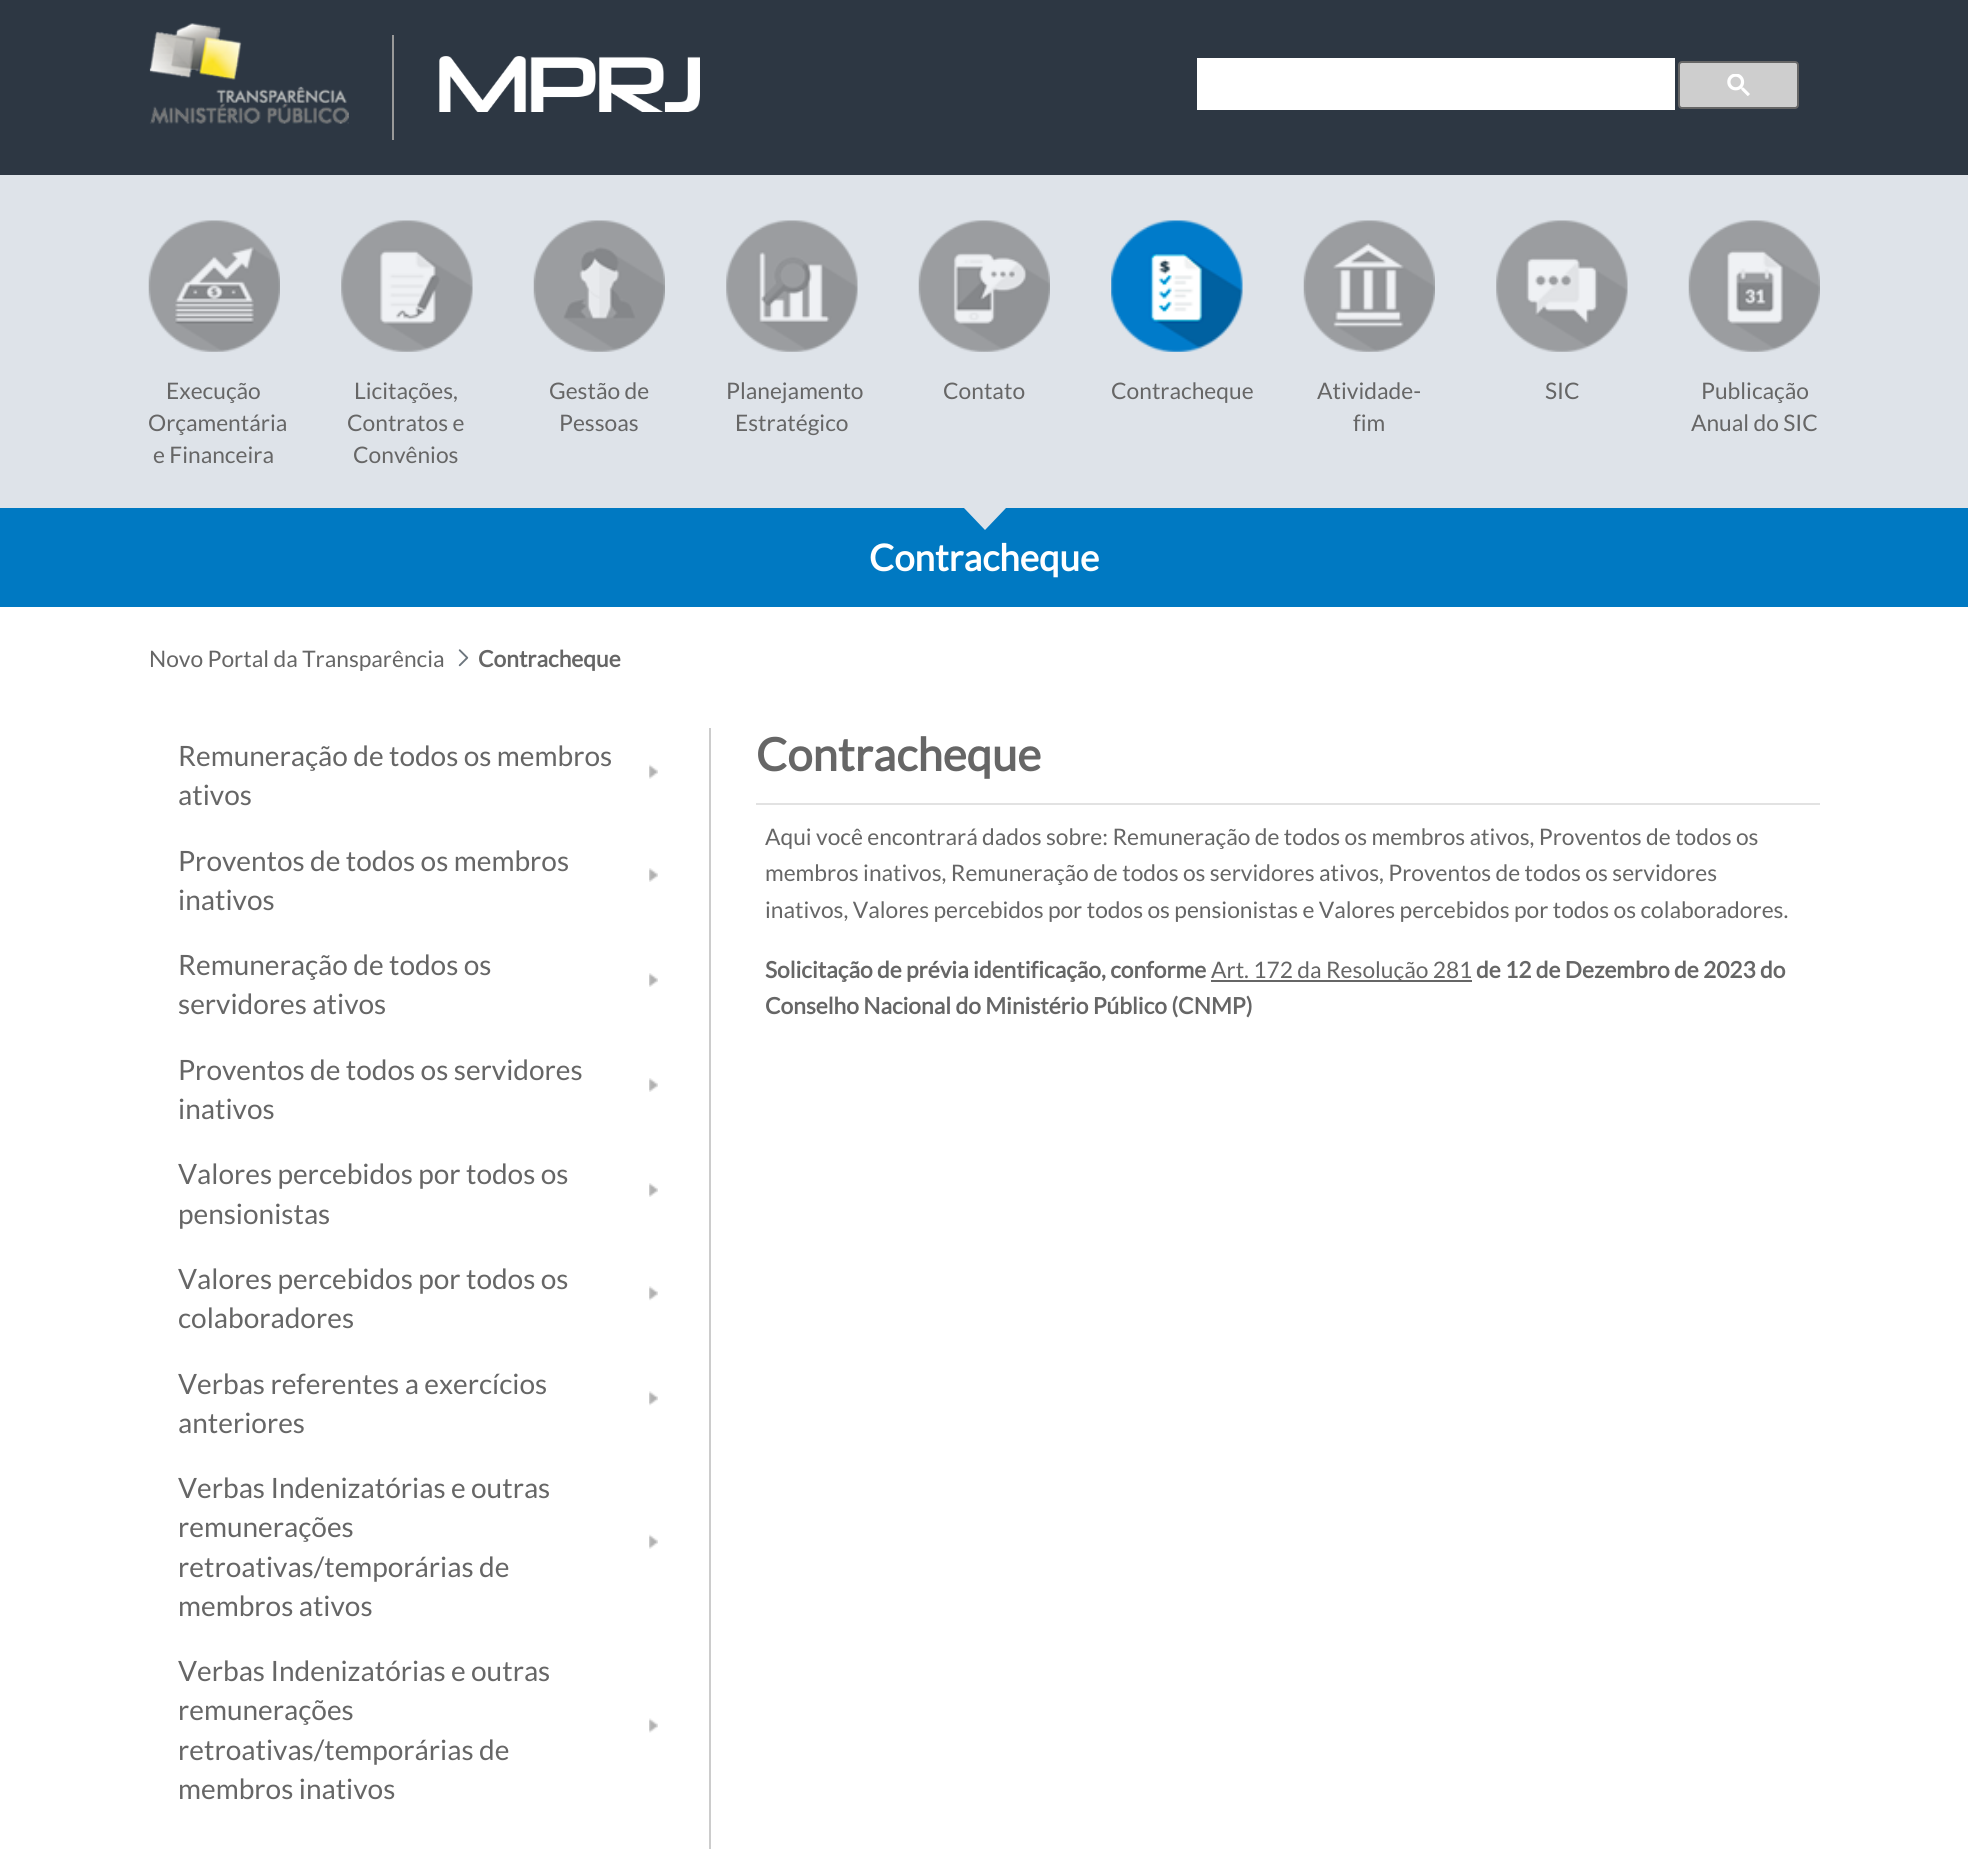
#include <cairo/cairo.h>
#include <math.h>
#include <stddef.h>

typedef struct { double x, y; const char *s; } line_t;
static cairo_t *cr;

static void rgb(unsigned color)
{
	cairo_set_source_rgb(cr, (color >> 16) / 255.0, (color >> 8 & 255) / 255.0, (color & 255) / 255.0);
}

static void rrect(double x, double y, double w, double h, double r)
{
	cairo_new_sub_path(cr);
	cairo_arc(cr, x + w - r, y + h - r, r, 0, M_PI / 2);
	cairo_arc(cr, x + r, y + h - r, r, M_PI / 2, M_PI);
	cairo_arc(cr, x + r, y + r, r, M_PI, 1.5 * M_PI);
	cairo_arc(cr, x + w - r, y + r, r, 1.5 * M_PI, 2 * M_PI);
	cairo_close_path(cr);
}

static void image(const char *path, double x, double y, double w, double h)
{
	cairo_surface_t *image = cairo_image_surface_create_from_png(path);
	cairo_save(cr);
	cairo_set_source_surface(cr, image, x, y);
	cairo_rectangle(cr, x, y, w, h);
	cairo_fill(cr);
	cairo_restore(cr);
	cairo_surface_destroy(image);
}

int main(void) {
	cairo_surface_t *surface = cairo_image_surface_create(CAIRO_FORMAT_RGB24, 1968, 1849);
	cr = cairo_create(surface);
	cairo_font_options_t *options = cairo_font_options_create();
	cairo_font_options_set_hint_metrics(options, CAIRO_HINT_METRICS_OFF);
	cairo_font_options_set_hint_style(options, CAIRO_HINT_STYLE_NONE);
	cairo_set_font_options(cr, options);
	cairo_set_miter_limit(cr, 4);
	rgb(0xffffff);
	cairo_paint(cr);
	rgb(0x2d3743);
	cairo_rectangle(cr, 0, 0, 1968, 175);
	cairo_fill(cr);
	image("img/1.png", 149, 23, 200, 101);
	rgb(0x999999);
	cairo_rectangle(cr, 392, 35, 2, 105);
	cairo_fill(cr);
	image("img/2.png", 439, 56, 261, 56);
	rgb(0xffffff);
	cairo_rectangle(cr, 1197, 58, 478, 52);
	cairo_fill(cr);
	rgb(0xcecece);
	rrect(1679, 62, 119, 46, 3);
	cairo_fill_preserve(cr);
	rgb(0x666666);
	cairo_stroke(cr);
	image("img/3.png", 1727, 74, 23, 22);
	rgb(0xdee3e9);
	cairo_rectangle(cr, 0, 175, 1968, 333);
	cairo_fill(cr);
	image("img/4.png", 148, 220, 132, 132);
	image("img/5.png", 341, 220, 132, 132);
	image("img/6.png", 533, 220, 132, 132);
	image("img/7.png", 726, 220, 132, 132);
	image("img/8.png", 918, 220, 132, 132);
	image("img/9.png", 1111, 220, 132, 132);
	image("img/10.png", 1303, 220, 132, 132);
	image("img/11.png", 1496, 220, 132, 132);
	image("img/12.png", 1688, 220, 132, 132);
	rgb(0x0079c2);
	cairo_rectangle(cr, 0, 508, 1968, 99);
	cairo_fill(cr);
	rgb(0xdee3e9);
	cairo_new_path(cr);
	cairo_move_to(cr, 964, 508);
	cairo_line_to(cr, 1006, 508);
	cairo_line_to(cr, 985, 530);
	cairo_close_path(cr);
	cairo_fill(cr);
	image("img/13.png", 458, 649, 11, 18);
	rgb(0xcccccc);
	cairo_rectangle(cr, 709, 728, 2, 1121);
	cairo_fill(cr);
	image("img/14.png", 649, 764, 9, 15);
	image("img/15.png", 649, 868, 9, 14);
	image("img/15.png", 649, 973, 9, 14);
	image("img/15.png", 649, 1078, 9, 14);
	image("img/15.png", 649, 1183, 9, 14);
	image("img/16.png", 649, 1286, 9, 15);
	image("img/16.png", 649, 1391, 9, 15);
	image("img/14.png", 649, 1534, 9, 15);
	image("img/17.png", 649, 1718, 9, 15);
	rgb(0xe2e2e2);
	cairo_rectangle(cr, 756, 803, 1064, 2);
	cairo_fill(cr);
	rgb(0x666666);
	cairo_rectangle(cr, 1211, 980, 261, 2);
	cairo_fill(cr);
	cairo_select_font_face(cr, "Lato", CAIRO_FONT_SLANT_NORMAL, CAIRO_FONT_WEIGHT_NORMAL);
	cairo_set_font_size(cr, 22.75);
	{
		static const line_t items[] = {
			{166, 399, "Execução"},
			{148, 431, "Orçamentária"},
			{153, 463, "e Financeira"},
			{354, 399, "Licitações,"},
			{347, 431, "Contratos e"},
			{353, 463, "Convênios"},
			{549, 399, "Gestão de"},
			{559, 431, "Pessoas"},
			{726, 399, "Planejamento"},
			{735, 431, "Estratégico"},
			{943, 399, "Contato"},
			{1111, 399, "Contracheque"},
			{1317, 399, "Atividade-"},
			{1353, 431, "fim"},
			{1545, 399, "SIC"},
			{1701, 399, "Publicação"},
			{1691, 431, "Anual do SIC"},
		};
		for (size_t i = 0; i < sizeof items / sizeof *items; i++) {
			cairo_move_to(cr, items[i].x, items[i].y);
			cairo_show_text(cr, items[i].s);
		}
	}
	cairo_select_font_face(cr, "Lato", CAIRO_FONT_SLANT_NORMAL, CAIRO_FONT_WEIGHT_BOLD);
	cairo_set_font_size(cr, 36.75);
	rgb(0xffffff);
	cairo_move_to(cr, 869, 571);
	cairo_show_text(cr, "Contracheque");
	cairo_select_font_face(cr, "Lato", CAIRO_FONT_SLANT_NORMAL, CAIRO_FONT_WEIGHT_NORMAL);
	cairo_set_font_size(cr, 22.75);
	rgb(0x666666);
	cairo_move_to(cr, 149, 667);
	cairo_show_text(cr, "Novo Portal da Transparência");
	cairo_select_font_face(cr, "Lato", CAIRO_FONT_SLANT_NORMAL, CAIRO_FONT_WEIGHT_BOLD);
	cairo_move_to(cr, 478, 667);
	cairo_show_text(cr, "Contracheque");
	cairo_select_font_face(cr, "Lato", CAIRO_FONT_SLANT_NORMAL, CAIRO_FONT_WEIGHT_NORMAL);
	cairo_set_font_size(cr, 28);
	{
		static const line_t items[] = {
			{178, 766, "Remuneração de todos os membros"},
			{178, 805, "ativos"},
			{178, 871, "Proventos de todos os membros"},
			{178, 910, "inativos"},
			{178, 975, "Remuneração de todos os"},
			{178, 1014, "servidores ativos"},
			{178, 1080, "Proventos de todos os servidores"},
			{178, 1119, "inativos"},
			{178, 1184, "Valores percebidos por todos os"},
			{178, 1224, "pensionistas"},
			{178, 1289, "Valores percebidos por todos os"},
			{178, 1328, "colaboradores"},
			{178, 1394, "Verbas referentes a exercícios"},
			{178, 1433, "anteriores"},
			{178, 1498, "Verbas Indenizatórias e outras"},
			{178, 1537, "remunerações"},
			{178, 1577, "retroativas/temporárias de"},
			{178, 1616, "membros ativos"},
			{178, 1681, "Verbas Indenizatórias e outras"},
			{178, 1720, "remunerações"},
			{178, 1760, "retroativas/temporárias de"},
			{178, 1799, "membros inativos"},
		};
		for (size_t i = 0; i < sizeof items / sizeof *items; i++) {
			cairo_move_to(cr, items[i].x, items[i].y);
			cairo_show_text(cr, items[i].s);
		}
	}
	cairo_select_font_face(cr, "Lato", CAIRO_FONT_SLANT_NORMAL, CAIRO_FONT_WEIGHT_BOLD);
	cairo_set_font_size(cr, 45.5);
	cairo_move_to(cr, 756, 771);
	cairo_show_text(cr, "Contracheque");
	cairo_select_font_face(cr, "Lato", CAIRO_FONT_SLANT_NORMAL, CAIRO_FONT_WEIGHT_NORMAL);
	cairo_set_font_size(cr, 22.75);
	{
		static const line_t items[] = {
			{765, 845, "Aqui você encontrará dados sobre: Remuneração de todos os membros ativos, Proventos de todos os"},
			{765, 881, "membros inativos, Remuneração de todos os servidores ativos, Proventos de todos os servidores"},
			{765, 918, "inativos, Valores percebidos por todos os pensionistas e Valores percebidos por todos os colaboradores."},
		};
		for (size_t i = 0; i < sizeof items / sizeof *items; i++) {
			cairo_move_to(cr, items[i].x, items[i].y);
			cairo_show_text(cr, items[i].s);
		}
	}
	cairo_select_font_face(cr, "Lato", CAIRO_FONT_SLANT_NORMAL, CAIRO_FONT_WEIGHT_BOLD);
	cairo_move_to(cr, 765, 978);
	cairo_show_text(cr, "Solicitação de prévia identificação, conforme");
	cairo_select_font_face(cr, "Lato", CAIRO_FONT_SLANT_NORMAL, CAIRO_FONT_WEIGHT_NORMAL);
	cairo_move_to(cr, 1211, 978);
	cairo_show_text(cr, "Art. 172 da Resolução 281");
	cairo_select_font_face(cr, "Lato", CAIRO_FONT_SLANT_NORMAL, CAIRO_FONT_WEIGHT_BOLD);
	cairo_move_to(cr, 1476, 978);
	cairo_show_text(cr, "de 12 de Dezembro de 2023 do");
	cairo_move_to(cr, 765, 1014);
	cairo_show_text(cr, "Conselho Nacional do Ministério Público (CNMP)");
	cairo_surface_write_to_png(surface, "page.png");
	cairo_font_options_destroy(options);
	cairo_destroy(cr);
	cairo_surface_destroy(surface);
	return 0;
}
